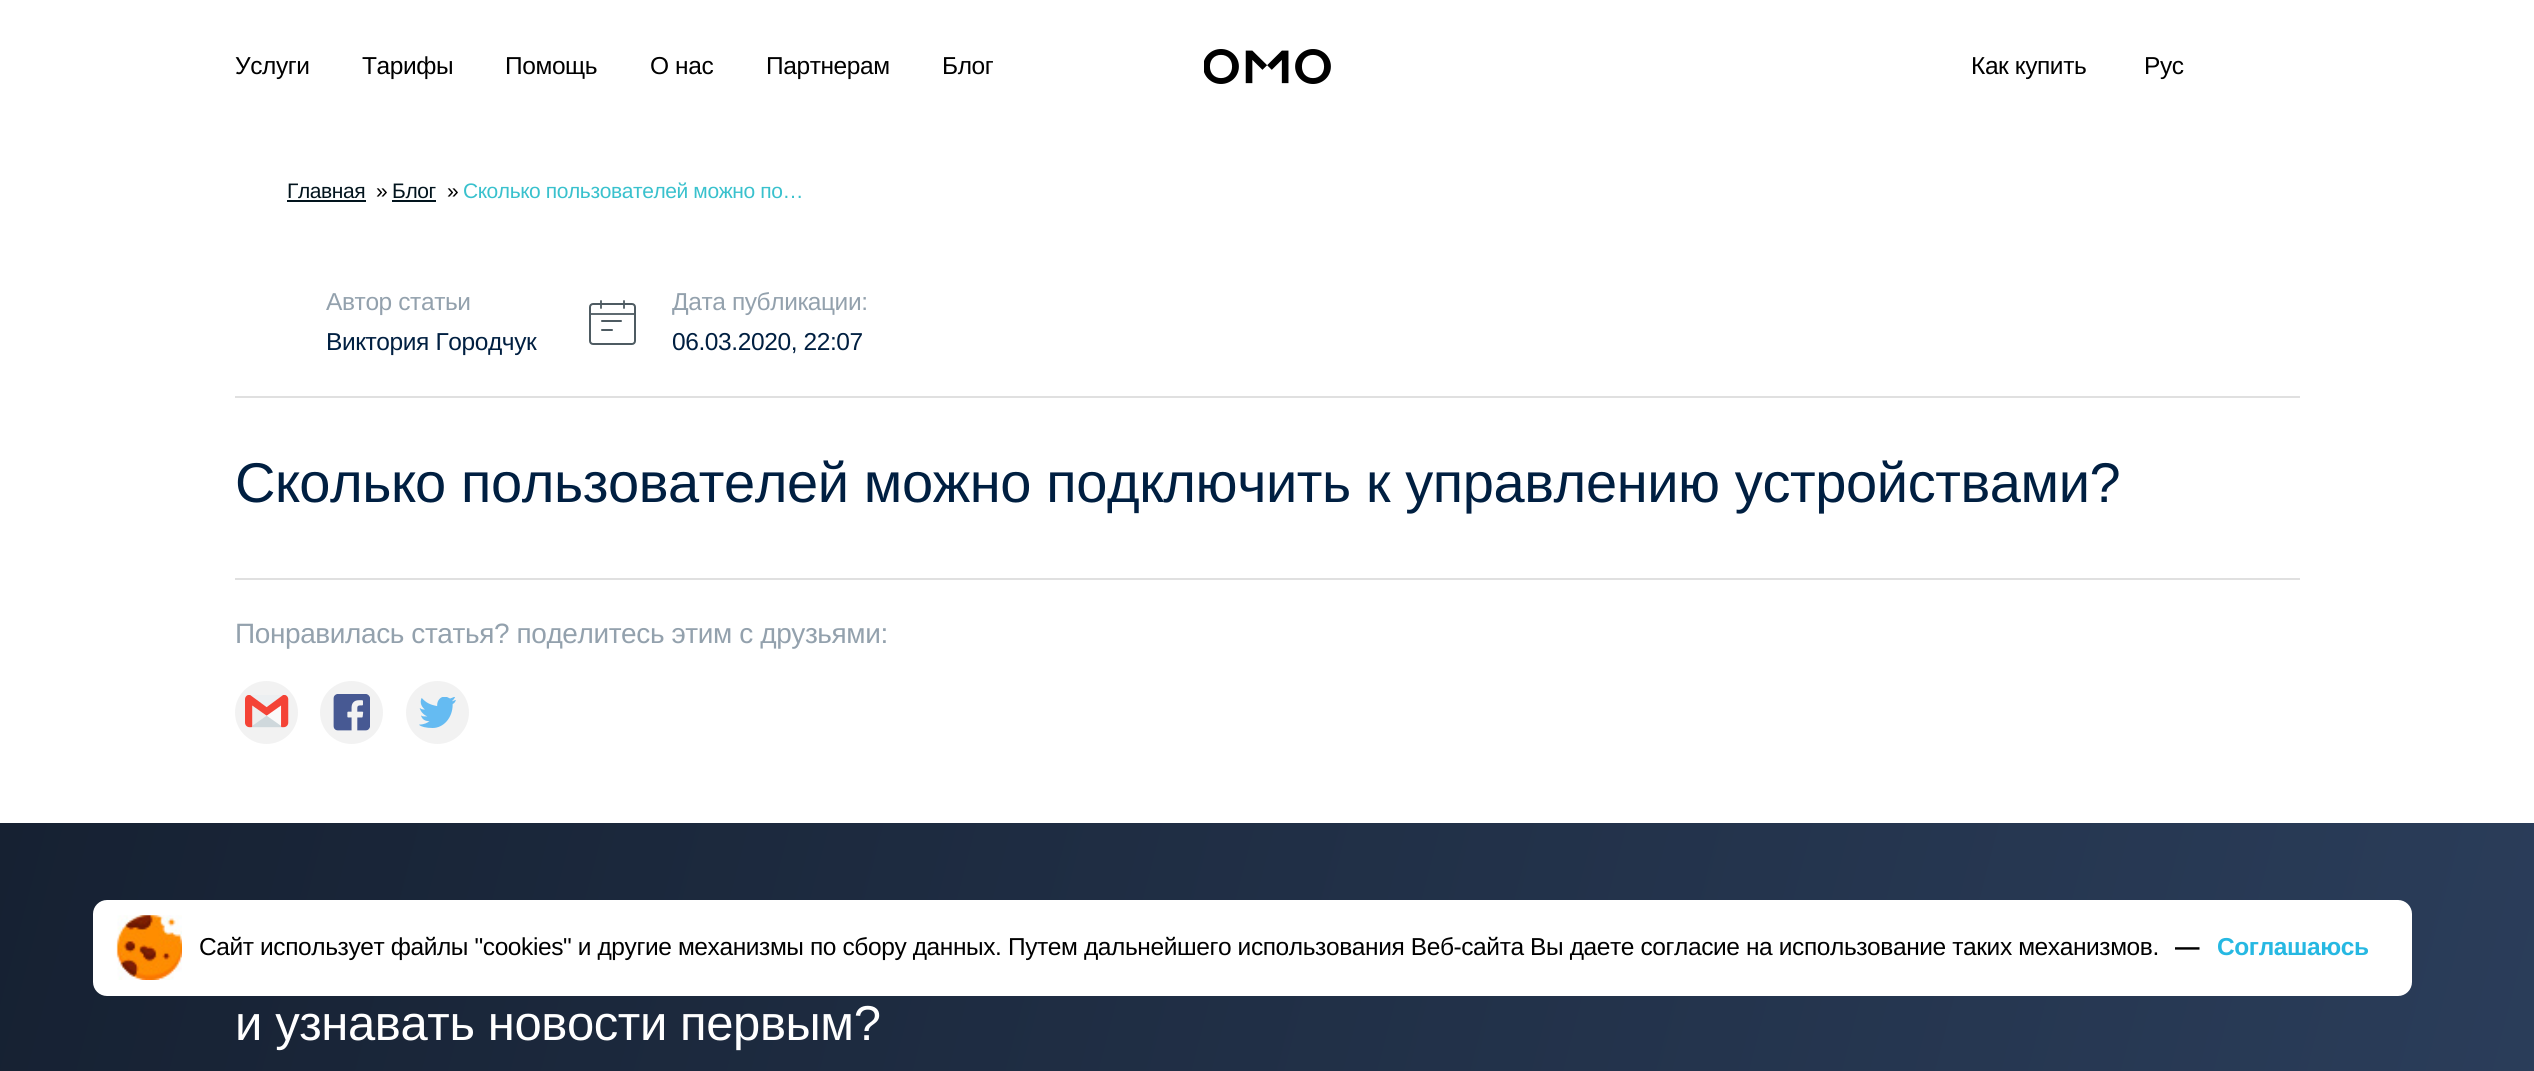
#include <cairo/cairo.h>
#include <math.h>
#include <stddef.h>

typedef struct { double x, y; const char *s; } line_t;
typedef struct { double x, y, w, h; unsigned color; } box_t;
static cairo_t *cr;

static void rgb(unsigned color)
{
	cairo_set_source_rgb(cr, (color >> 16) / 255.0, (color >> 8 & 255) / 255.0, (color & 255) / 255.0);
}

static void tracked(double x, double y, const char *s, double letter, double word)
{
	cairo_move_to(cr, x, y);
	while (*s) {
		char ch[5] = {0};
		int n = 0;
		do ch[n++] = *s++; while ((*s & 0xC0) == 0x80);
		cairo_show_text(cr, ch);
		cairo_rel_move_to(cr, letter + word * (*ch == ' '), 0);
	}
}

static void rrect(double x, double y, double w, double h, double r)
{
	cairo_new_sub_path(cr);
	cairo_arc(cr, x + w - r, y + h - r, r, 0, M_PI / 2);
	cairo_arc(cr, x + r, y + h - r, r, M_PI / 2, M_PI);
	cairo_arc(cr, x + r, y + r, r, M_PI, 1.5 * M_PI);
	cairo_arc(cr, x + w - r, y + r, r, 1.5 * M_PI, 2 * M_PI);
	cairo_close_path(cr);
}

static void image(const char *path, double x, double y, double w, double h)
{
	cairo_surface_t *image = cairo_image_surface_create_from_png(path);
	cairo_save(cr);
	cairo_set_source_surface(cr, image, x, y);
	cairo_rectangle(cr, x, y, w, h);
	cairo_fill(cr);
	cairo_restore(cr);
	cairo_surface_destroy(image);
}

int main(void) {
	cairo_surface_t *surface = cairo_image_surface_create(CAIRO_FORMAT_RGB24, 2534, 1071);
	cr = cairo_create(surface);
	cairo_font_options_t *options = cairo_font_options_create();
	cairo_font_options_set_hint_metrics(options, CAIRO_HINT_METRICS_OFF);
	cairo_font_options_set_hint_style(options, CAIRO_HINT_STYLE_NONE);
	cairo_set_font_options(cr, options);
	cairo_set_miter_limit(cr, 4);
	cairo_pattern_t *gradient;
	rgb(0xffffff);
	cairo_paint(cr);
	image("img/1.png", 1204, 49, 127, 35);
	{
		static const box_t items[] = {
			{287, 200, 79, 2, 0x02141d},
			{392, 200, 44, 2, 0x02141d},
			{235, 396, 2065, 2, 0xe0e0e0},
		};
		for (size_t i = 0; i < sizeof items / sizeof *items; i++) {
			rgb(items[i].color);
			cairo_rectangle(cr, items[i].x, items[i].y, items[i].w, items[i].h);
			cairo_fill(cr);
		}
	}
	rrect(590, 304, 45, 40, 3);
	rgb(0x4e5b62);
	cairo_stroke(cr);
	cairo_new_path(cr);
	cairo_move_to(cr, 601, 301);
	cairo_line_to(cr, 601, 308);
	cairo_move_to(cr, 624, 301);
	cairo_line_to(cr, 624, 308);
	cairo_set_line_width(cr, 1.8);
	cairo_set_line_cap(cr, CAIRO_LINE_CAP_ROUND);
	cairo_stroke(cr);
	cairo_set_source_rgba(cr, 0.306, 0.357, 0.384, 0.9);
	cairo_rectangle(cr, 589, 313, 47, 2);
	cairo_fill(cr);
	rgb(0x4e5b62);
	rrect(601, 320, 21, 2, 1);
	cairo_fill(cr);
	rrect(601, 329, 12, 2, 1);
	cairo_fill(cr);
	rgb(0xe0e0e0);
	cairo_rectangle(cr, 235, 578, 2065, 2);
	cairo_fill(cr);
	rgb(0xf2f2f2);
	cairo_arc(cr, 266.5, 712.5, 31.5, 0, 2 * M_PI);
	cairo_fill(cr);
	image("img/2.png", 245, 695, 44, 33);
	cairo_arc(cr, 351.5, 712.5, 31.5, 0, 2 * M_PI);
	cairo_fill(cr);
	image("img/3.png", 333, 694, 37, 37);
	cairo_arc(cr, 437.5, 712.5, 31.5, 0, 2 * M_PI);
	cairo_fill(cr);
	image("img/4.png", 419, 697, 37, 31);
	gradient = cairo_pattern_create_linear(-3.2, 801, 2529, 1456);
	cairo_pattern_add_color_stop_rgba(gradient, 0, 0.086, 0.129, 0.196, 1);
	cairo_pattern_add_color_stop_rgba(gradient, 1, 0.169, 0.243, 0.357, 1);
	cairo_set_source(cr, gradient);
	cairo_pattern_destroy(gradient);
	cairo_rectangle(cr, 0, 823, 2534, 248);
	cairo_fill(cr);
	rgb(0xffffff);
	rrect(93, 900, 2319, 96, 14);
	cairo_fill(cr);
	image("img/5.png", 116, 915, 66, 65);
	cairo_select_font_face(cr, "Liberation Sans", CAIRO_FONT_SLANT_NORMAL, CAIRO_FONT_WEIGHT_NORMAL);
	cairo_set_font_size(cr, 24.5);
	rgb(0x000000);
	{
		static const line_t items[] = {
			{235, 74, "Услуги"},
			{362, 74, "Тарифы"},
			{505, 74, "Помощь"},
			{650, 74, "О нас"},
			{766, 74, "Партнерам"},
			{942, 74, "Блог"},
			{1971, 74, "Как купить"},
			{2144, 74, "Рус"},
		};
		for (size_t i = 0; i < sizeof items / sizeof *items; i++) {
			tracked(items[i].x, items[i].y, items[i].s, -0.4, 0);
		}
	}
	cairo_set_font_size(cr, 21);
	rgb(0x02141d);
	tracked(287, 198, "Главная", -0.4, 0);
	rgb(0x000000);
	tracked(376, 198, "»", -0.4, 0);
	rgb(0x02141d);
	tracked(392, 198, "Блог", -0.4, 0);
	rgb(0x000000);
	tracked(447, 198, "»", -0.4, 0);
	rgb(0x39c1cd);
	tracked(463, 198, "Сколько пользователей можно по…", -0.4, 0);
	cairo_set_font_size(cr, 24.5);
	rgb(0x93a1ad);
	tracked(326, 310, "Автор статьи", -0.4, 0);
	rgb(0x001f41);
	tracked(326, 350, "Виктория Городчук", -0.4, 0);
	rgb(0x93a1ad);
	tracked(672, 310, "Дата публикации:", -0.4, 0);
	rgb(0x001f41);
	tracked(672, 350, "06.03.2020, 22:07", -0.4, 0);
	cairo_set_font_size(cr, 56);
	tracked(235, 502, "Сколько пользователей можно подключить к управлению устройствами?", -0.4, 0);
	cairo_set_font_size(cr, 28);
	rgb(0x93a1ad);
	tracked(235, 643, "Понравилась статья? поделитесь этим с друзьями:", -0.4, 0);
	cairo_set_font_size(cr, 24.5);
	rgb(0x000000);
	tracked(199, 955, "Сайт использует файлы \"cookies\" и другие механизмы по сбору данных. Путем дальнейшего использования Веб-сайта Вы даете согласие на использование таких механизмов.", -0.4, 0);
	cairo_select_font_face(cr, "Liberation Sans", CAIRO_FONT_SLANT_NORMAL, CAIRO_FONT_WEIGHT_BOLD);
	tracked(2175, 955, "—", -0.4, 0);
	rgb(0x26b8e2);
	tracked(2217, 955, "Соглашаюсь", -0.4, 0);
	cairo_select_font_face(cr, "Liberation Sans", CAIRO_FONT_SLANT_NORMAL, CAIRO_FONT_WEIGHT_NORMAL);
	cairo_set_font_size(cr, 49);
	rgb(0xffffff);
	tracked(235, 1040, "и узнавать новости первым?", -0.4, 0);
	cairo_surface_write_to_png(surface, "page.png");
	cairo_font_options_destroy(options);
	cairo_destroy(cr);
	cairo_surface_destroy(surface);
	return 0;
}
